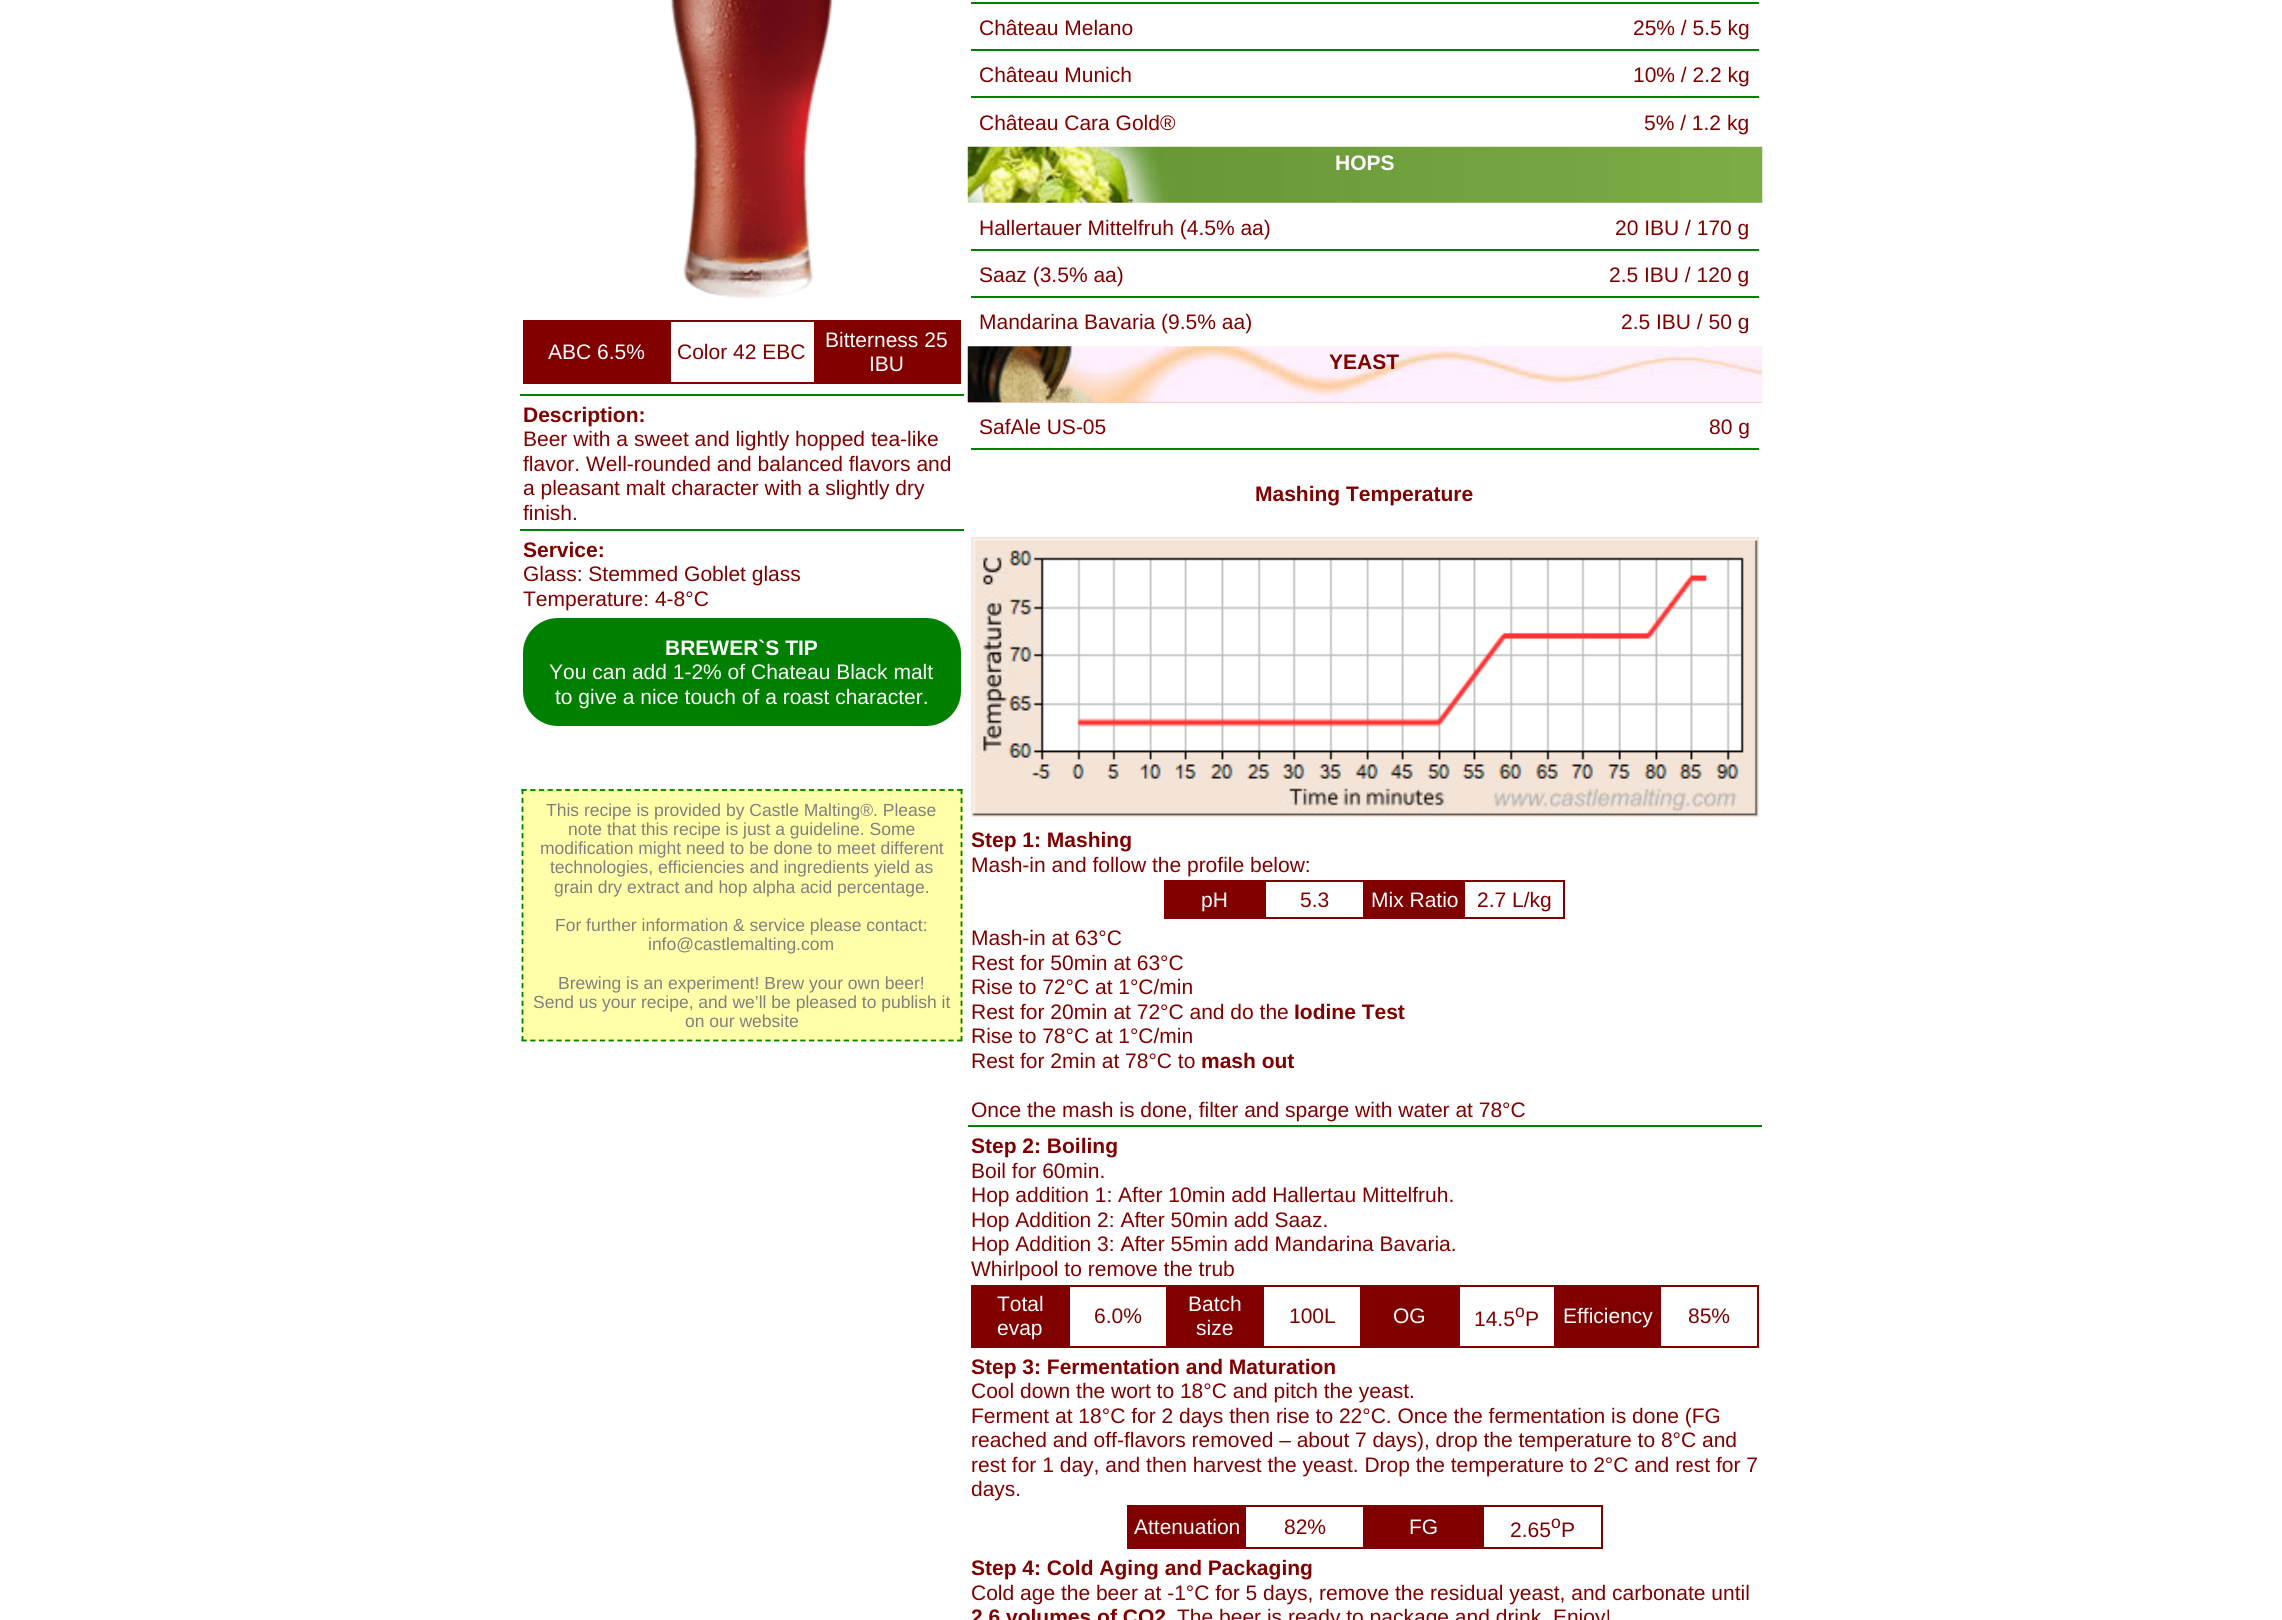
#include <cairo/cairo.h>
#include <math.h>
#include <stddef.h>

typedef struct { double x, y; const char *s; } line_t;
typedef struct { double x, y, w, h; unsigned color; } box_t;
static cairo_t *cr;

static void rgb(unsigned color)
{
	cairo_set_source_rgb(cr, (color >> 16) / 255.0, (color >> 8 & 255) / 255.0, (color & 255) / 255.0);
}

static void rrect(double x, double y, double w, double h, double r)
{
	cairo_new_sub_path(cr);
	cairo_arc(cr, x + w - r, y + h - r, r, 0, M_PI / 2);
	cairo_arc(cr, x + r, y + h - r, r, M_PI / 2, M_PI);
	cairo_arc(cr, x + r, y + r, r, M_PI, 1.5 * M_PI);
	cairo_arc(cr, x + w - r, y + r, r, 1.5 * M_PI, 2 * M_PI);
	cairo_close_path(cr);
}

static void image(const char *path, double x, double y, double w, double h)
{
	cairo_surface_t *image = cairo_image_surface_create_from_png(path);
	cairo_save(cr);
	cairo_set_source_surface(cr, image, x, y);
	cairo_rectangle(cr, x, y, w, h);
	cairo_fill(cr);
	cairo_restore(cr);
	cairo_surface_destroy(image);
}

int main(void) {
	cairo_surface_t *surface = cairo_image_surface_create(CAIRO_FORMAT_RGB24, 2282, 1620);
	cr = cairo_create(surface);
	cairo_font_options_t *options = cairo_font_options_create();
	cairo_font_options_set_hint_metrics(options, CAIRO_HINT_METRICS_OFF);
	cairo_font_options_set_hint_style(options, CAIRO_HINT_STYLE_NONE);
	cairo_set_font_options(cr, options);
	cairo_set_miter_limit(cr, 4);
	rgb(0xffffff);
	cairo_paint(cr);
	image("img/1.png", 670, 0, 163, 299);
	{
		static const box_t items[] = {
			{523, 322, 146, 60, 0x800000},
			{669, 320, 292, 2, 0x800000},
			{959, 320, 2, 63, 0x800000},
			{669, 382, 292, 2, 0x800000},
			{669, 320, 2, 63, 0x800000},
			{523, 320, 147, 2, 0x800000},
			{523, 382, 147, 2, 0x800000},
			{814, 322, 145, 60, 0x800000},
			{520, 394, 444, 2, 0x008000},
			{520, 529, 444, 2, 0x008000},
		};
		for (size_t i = 0; i < sizeof items / sizeof *items; i++) {
			rgb(items[i].color);
			cairo_rectangle(cr, items[i].x, items[i].y, items[i].w, items[i].h);
			cairo_fill(cr);
		}
	}
	rrect(523, 618, 438, 108, 35);
	cairo_fill(cr);
	rgb(0xffffaa);
	cairo_rectangle(cr, 522, 789, 441, 252);
	cairo_fill(cr);
	cairo_new_path(cr);
	cairo_move_to(cr, 521.5, 790);
	cairo_line_to(cr, 962.5, 790);
	rgb(0x008000);
	cairo_set_line_width(cr, 1.8);
	cairo_set_dash(cr, (double[]){5.25, 3.46}, 2, 0);
	cairo_stroke(cr);
	cairo_new_path(cr);
	cairo_move_to(cr, 961.5, 789);
	cairo_line_to(cr, 961.5, 1041);
	cairo_set_dash(cr, (double[]){5.25, 3.57}, 2, 0);
	cairo_stroke(cr);
	cairo_new_path(cr);
	cairo_move_to(cr, 521.5, 1040.5);
	cairo_line_to(cr, 962.5, 1040.5);
	cairo_set_dash(cr, (double[]){5.25, 3.46}, 2, 0);
	cairo_stroke(cr);
	cairo_new_path(cr);
	cairo_move_to(cr, 522.5, 789);
	cairo_line_to(cr, 522.5, 1041);
	cairo_set_dash(cr, (double[]){5.25, 3.57}, 2, 0);
	cairo_stroke(cr);
	{
		static const box_t items[] = {
			{971, 2, 788, 2, 0x008000},
			{971, 49, 788, 2, 0x008000},
			{971, 96, 788, 2, 0x008000},
		};
		for (size_t i = 0; i < sizeof items / sizeof *items; i++) {
			rgb(items[i].color);
			cairo_rectangle(cr, items[i].x, items[i].y, items[i].w, items[i].h);
			cairo_fill(cr);
		}
	}
	image("img/2.png", 967, 146, 796, 57);
	{
		static const box_t items[] = {
			{971, 249, 788, 2, 0x008000},
			{971, 296, 788, 2, 0x008000},
			{968, 402, 794, 1, 0xfec4c4},
		};
		for (size_t i = 0; i < sizeof items / sizeof *items; i++) {
			rgb(items[i].color);
			cairo_rectangle(cr, items[i].x, items[i].y, items[i].w, items[i].h);
			cairo_fill(cr);
		}
	}
	image("img/3.png", 967, 346, 796, 57);
	rgb(0x008000);
	cairo_rectangle(cr, 971, 448, 788, 2);
	cairo_fill(cr);
	image("img/4.png", 971, 537, 788, 280);
	{
		static const box_t items[] = {
			{1166, 882, 98, 35, 0x800000},
			{1363, 880, 202, 2, 0x800000},
			{1563, 880, 2, 39, 0x800000},
			{1363, 917, 202, 2, 0x800000},
			{1363, 880, 2, 39, 0x800000},
			{1264, 880, 101, 2, 0x800000},
			{1264, 917, 101, 2, 0x800000},
			{1264, 880, 2, 39, 0x800000},
			{1164, 880, 101, 2, 0x800000},
			{1164, 917, 101, 2, 0x800000},
			{1164, 880, 2, 39, 0x800000},
			{1365, 882, 100, 35, 0x800000},
			{968, 1125, 794, 2, 0x008000},
			{971, 1287, 97, 61, 0x800000},
			{1166, 1287, 98, 61, 0x800000},
			{1068, 1346, 99, 2, 0x800000},
			{1554, 1285, 205, 2, 0x800000},
			{1757, 1285, 2, 63, 0x800000},
			{1554, 1346, 205, 2, 0x800000},
			{1554, 1285, 2, 63, 0x800000},
			{1458, 1285, 98, 2, 0x800000},
			{1458, 1346, 98, 2, 0x800000},
			{1458, 1285, 2, 63, 0x800000},
			{1068, 1285, 392, 2, 0x800000},
			{1068, 1285, 2, 63, 0x800000},
			{971, 1285, 98, 2, 0x800000},
			{1360, 1287, 98, 61, 0x800000},
			{1262, 1346, 100, 2, 0x800000},
			{1556, 1287, 105, 59, 0x800000},
			{1127, 1507, 119, 42, 0x800000},
			{1482, 1505, 121, 2, 0x800000},
			{1601, 1505, 2, 44, 0x800000},
			{1482, 1547, 121, 2, 0x800000},
			{1482, 1505, 2, 44, 0x800000},
			{1363, 1505, 121, 2, 0x800000},
			{1363, 1547, 121, 2, 0x800000},
			{1363, 1505, 2, 44, 0x800000},
			{1127, 1505, 238, 2, 0x800000},
			{1244, 1547, 121, 2, 0x800000},
			{1365, 1507, 117, 40, 0x800000},
		};
		for (size_t i = 0; i < sizeof items / sizeof *items; i++) {
			rgb(items[i].color);
			cairo_rectangle(cr, items[i].x, items[i].y, items[i].w, items[i].h);
			cairo_fill(cr);
		}
	}
	cairo_select_font_face(cr, "Liberation Sans", CAIRO_FONT_SLANT_NORMAL, CAIRO_FONT_WEIGHT_NORMAL);
	cairo_set_font_size(cr, 21);
	rgb(0xffffff);
	cairo_move_to(cr, 548, 359);
	cairo_show_text(cr, "ABC 6.5%");
	rgb(0x800000);
	cairo_move_to(cr, 677, 359);
	cairo_show_text(cr, "Color 42 EBC");
	rgb(0xffffff);
	cairo_move_to(cr, 825, 347);
	cairo_show_text(cr, "Bitterness 25");
	cairo_move_to(cr, 869, 371);
	cairo_show_text(cr, "IBU");
	cairo_select_font_face(cr, "Liberation Sans", CAIRO_FONT_SLANT_NORMAL, CAIRO_FONT_WEIGHT_BOLD);
	rgb(0x800000);
	cairo_move_to(cr, 523, 422);
	cairo_show_text(cr, "Description:");
	cairo_select_font_face(cr, "Liberation Sans", CAIRO_FONT_SLANT_NORMAL, CAIRO_FONT_WEIGHT_NORMAL);
	{
		static const line_t items[] = {
			{523, 446, "Beer with a sweet and lightly hopped tea-like"},
			{523, 471, "flavor. Well-rounded and balanced flavors and"},
			{523, 495, "a pleasant malt character with a slightly dry"},
			{523, 520, "finish."},
		};
		for (size_t i = 0; i < sizeof items / sizeof *items; i++) {
			cairo_move_to(cr, items[i].x, items[i].y);
			cairo_show_text(cr, items[i].s);
		}
	}
	cairo_select_font_face(cr, "Liberation Sans", CAIRO_FONT_SLANT_NORMAL, CAIRO_FONT_WEIGHT_BOLD);
	cairo_move_to(cr, 523, 557);
	cairo_show_text(cr, "Service:");
	cairo_select_font_face(cr, "Liberation Sans", CAIRO_FONT_SLANT_NORMAL, CAIRO_FONT_WEIGHT_NORMAL);
	cairo_move_to(cr, 523, 581);
	cairo_show_text(cr, "Glass: Stemmed Goblet glass");
	cairo_move_to(cr, 523, 606);
	cairo_show_text(cr, "Temperature: 4-8°C");
	cairo_select_font_face(cr, "Liberation Sans", CAIRO_FONT_SLANT_NORMAL, CAIRO_FONT_WEIGHT_BOLD);
	rgb(0xffffff);
	cairo_move_to(cr, 665, 655);
	cairo_show_text(cr, "BREWER`S TIP");
	cairo_select_font_face(cr, "Liberation Sans", CAIRO_FONT_SLANT_NORMAL, CAIRO_FONT_WEIGHT_NORMAL);
	cairo_move_to(cr, 549, 679);
	cairo_show_text(cr, "You can add 1-2% of Chateau Black malt");
	cairo_move_to(cr, 555, 704);
	cairo_show_text(cr, "to give a nice touch of a roast character.");
	cairo_set_font_size(cr, 17.5);
	rgb(0x808080);
	{
		static const line_t items[] = {
			{546, 816, "This recipe is provided by Castle Malting®. Please"},
			{568, 835, "note that this recipe is just a guideline. Some"},
			{540, 854, "modification might need to be done to meet different"},
			{550, 873, "technologies, efficiencies and ingredients yield as"},
			{554, 893, "grain dry extract and hop alpha acid percentage."},
			{555, 931, "For further information & service please contact:"},
			{648, 950, "info@castlemalting.com"},
			{558, 989, "Brewing is an experiment! Brew your own beer!"},
			{533, 1008, "Send us your recipe, and we’ll be pleased to publish it"},
			{685, 1027, "on our website"},
		};
		for (size_t i = 0; i < sizeof items / sizeof *items; i++) {
			cairo_move_to(cr, items[i].x, items[i].y);
			cairo_show_text(cr, items[i].s);
		}
	}
	cairo_set_font_size(cr, 21);
	rgb(0x800000);
	{
		static const line_t items[] = {
			{979, 35, "Château Melano"},
			{1633, 35, "25% / 5.5 kg"},
			{979, 82, "Château Munich"},
			{1633, 82, "10% / 2.2 kg"},
			{979, 130, "Château Cara Gold®"},
			{1644, 130, "5% / 1.2 kg"},
		};
		for (size_t i = 0; i < sizeof items / sizeof *items; i++) {
			cairo_move_to(cr, items[i].x, items[i].y);
			cairo_show_text(cr, items[i].s);
		}
	}
	cairo_select_font_face(cr, "Liberation Sans", CAIRO_FONT_SLANT_NORMAL, CAIRO_FONT_WEIGHT_BOLD);
	rgb(0xffffff);
	cairo_move_to(cr, 1335, 170);
	cairo_show_text(cr, "HOPS");
	cairo_select_font_face(cr, "Liberation Sans", CAIRO_FONT_SLANT_NORMAL, CAIRO_FONT_WEIGHT_NORMAL);
	rgb(0x800000);
	{
		static const line_t items[] = {
			{979, 235, "Hallertauer Mittelfruh (4.5% aa)"},
			{1615, 235, "20 IBU / 170 g"},
			{979, 282, "Saaz (3.5% aa)"},
			{1609, 282, "2.5 IBU / 120 g"},
			{979, 329, "Mandarina Bavaria (9.5% aa)"},
			{1621, 329, "2.5 IBU / 50 g"},
		};
		for (size_t i = 0; i < sizeof items / sizeof *items; i++) {
			cairo_move_to(cr, items[i].x, items[i].y);
			cairo_show_text(cr, items[i].s);
		}
	}
	cairo_select_font_face(cr, "Liberation Sans", CAIRO_FONT_SLANT_NORMAL, CAIRO_FONT_WEIGHT_BOLD);
	cairo_move_to(cr, 1329, 369);
	cairo_show_text(cr, "YEAST");
	cairo_select_font_face(cr, "Liberation Sans", CAIRO_FONT_SLANT_NORMAL, CAIRO_FONT_WEIGHT_NORMAL);
	cairo_move_to(cr, 979, 434);
	cairo_show_text(cr, "SafAle US-05");
	cairo_move_to(cr, 1709, 434);
	cairo_show_text(cr, "80 g");
	cairo_select_font_face(cr, "Liberation Sans", CAIRO_FONT_SLANT_NORMAL, CAIRO_FONT_WEIGHT_BOLD);
	cairo_move_to(cr, 1255, 501);
	cairo_show_text(cr, "Mashing Temperature");
	cairo_move_to(cr, 971, 847);
	cairo_show_text(cr, "Step 1: Mashing");
	cairo_select_font_face(cr, "Liberation Sans", CAIRO_FONT_SLANT_NORMAL, CAIRO_FONT_WEIGHT_NORMAL);
	cairo_move_to(cr, 971, 872);
	cairo_show_text(cr, "Mash-in and follow the profile below:");
	rgb(0xffffff);
	cairo_move_to(cr, 1201, 907);
	cairo_show_text(cr, "pH");
	rgb(0x800000);
	cairo_move_to(cr, 1300, 907);
	cairo_show_text(cr, "5.3");
	rgb(0xffffff);
	cairo_move_to(cr, 1371, 907);
	cairo_show_text(cr, "Mix Ratio");
	rgb(0x800000);
	{
		static const line_t items[] = {
			{1477, 907, "2.7 L/kg"},
			{971, 945, "Mash-in at 63°C"},
			{971, 970, "Rest for 50min at 63°C"},
			{971, 994, "Rise to 72°C at 1°C/min"},
			{971, 1019, "Rest for 20min at 72°C and do the"},
		};
		for (size_t i = 0; i < sizeof items / sizeof *items; i++) {
			cairo_move_to(cr, items[i].x, items[i].y);
			cairo_show_text(cr, items[i].s);
		}
	}
	cairo_select_font_face(cr, "Liberation Sans", CAIRO_FONT_SLANT_NORMAL, CAIRO_FONT_WEIGHT_BOLD);
	cairo_move_to(cr, 1294, 1019);
	cairo_show_text(cr, "Iodine Test");
	cairo_select_font_face(cr, "Liberation Sans", CAIRO_FONT_SLANT_NORMAL, CAIRO_FONT_WEIGHT_NORMAL);
	cairo_move_to(cr, 971, 1043);
	cairo_show_text(cr, "Rise to 78°C at 1°C/min");
	cairo_move_to(cr, 971, 1068);
	cairo_show_text(cr, "Rest for 2min at 78°C to");
	cairo_select_font_face(cr, "Liberation Sans", CAIRO_FONT_SLANT_NORMAL, CAIRO_FONT_WEIGHT_BOLD);
	cairo_move_to(cr, 1201, 1068);
	cairo_show_text(cr, "mash out");
	cairo_select_font_face(cr, "Liberation Sans", CAIRO_FONT_SLANT_NORMAL, CAIRO_FONT_WEIGHT_NORMAL);
	cairo_move_to(cr, 971, 1117);
	cairo_show_text(cr, "Once the mash is done, filter and sparge with water at 78°C");
	cairo_select_font_face(cr, "Liberation Sans", CAIRO_FONT_SLANT_NORMAL, CAIRO_FONT_WEIGHT_BOLD);
	cairo_move_to(cr, 971, 1153);
	cairo_show_text(cr, "Step 2: Boiling");
	cairo_select_font_face(cr, "Liberation Sans", CAIRO_FONT_SLANT_NORMAL, CAIRO_FONT_WEIGHT_NORMAL);
	{
		static const line_t items[] = {
			{971, 1178, "Boil for 60min."},
			{971, 1202, "Hop addition 1: After 10min add Hallertau Mittelfruh."},
			{971, 1227, "Hop Addition 2: After 50min add Saaz."},
			{971, 1251, "Hop Addition 3: After 55min add Mandarina Bavaria."},
			{971, 1276, "Whirlpool to remove the trub"},
		};
		for (size_t i = 0; i < sizeof items / sizeof *items; i++) {
			cairo_move_to(cr, items[i].x, items[i].y);
			cairo_show_text(cr, items[i].s);
		}
	}
	rgb(0xffffff);
	cairo_move_to(cr, 997, 1311);
	cairo_show_text(cr, "Total");
	cairo_move_to(cr, 997, 1335);
	cairo_show_text(cr, "evap");
	rgb(0x800000);
	cairo_move_to(cr, 1094, 1323);
	cairo_show_text(cr, "6.0%");
	rgb(0xffffff);
	cairo_move_to(cr, 1188, 1311);
	cairo_show_text(cr, "Batch");
	cairo_move_to(cr, 1196, 1335);
	cairo_show_text(cr, "size");
	rgb(0x800000);
	cairo_move_to(cr, 1289, 1323);
	cairo_show_text(cr, "100L");
	rgb(0xffffff);
	cairo_move_to(cr, 1393, 1323);
	cairo_show_text(cr, "OG");
	rgb(0x800000);
	cairo_move_to(cr, 1474, 1326);
	cairo_show_text(cr, "14.5");
	cairo_set_font_size(cr, 17.5);
	cairo_move_to(cr, 1515, 1317);
	cairo_show_text(cr, "o");
	cairo_set_font_size(cr, 21);
	cairo_move_to(cr, 1525, 1326);
	cairo_show_text(cr, "P");
	rgb(0xffffff);
	cairo_move_to(cr, 1563, 1323);
	cairo_show_text(cr, "Efficiency");
	rgb(0x800000);
	cairo_move_to(cr, 1688, 1323);
	cairo_show_text(cr, "85%");
	cairo_select_font_face(cr, "Liberation Sans", CAIRO_FONT_SLANT_NORMAL, CAIRO_FONT_WEIGHT_BOLD);
	cairo_move_to(cr, 971, 1374);
	cairo_show_text(cr, "Step 3: Fermentation and Maturation");
	cairo_select_font_face(cr, "Liberation Sans", CAIRO_FONT_SLANT_NORMAL, CAIRO_FONT_WEIGHT_NORMAL);
	{
		static const line_t items[] = {
			{971, 1398, "Cool down the wort to 18°C and pitch the yeast."},
			{971, 1423, "Ferment at 18°C for 2 days then rise to 22°C. Once the fermentation is done (FG"},
			{971, 1447, "reached and off-flavors removed – about 7 days), drop the temperature to 8°C and"},
			{971, 1472, "rest for 1 day, and then harvest the yeast. Drop the temperature to 2°C and rest for 7"},
			{971, 1496, "days."},
		};
		for (size_t i = 0; i < sizeof items / sizeof *items; i++) {
			cairo_move_to(cr, items[i].x, items[i].y);
			cairo_show_text(cr, items[i].s);
		}
	}
	rgb(0xffffff);
	cairo_move_to(cr, 1134, 1534);
	cairo_show_text(cr, "Attenuation");
	rgb(0x800000);
	cairo_move_to(cr, 1284, 1534);
	cairo_show_text(cr, "82%");
	rgb(0xffffff);
	cairo_move_to(cr, 1409, 1534);
	cairo_show_text(cr, "FG");
	rgb(0x800000);
	cairo_move_to(cr, 1510, 1537);
	cairo_show_text(cr, "2.65");
	cairo_set_font_size(cr, 17.5);
	cairo_move_to(cr, 1551, 1528);
	cairo_show_text(cr, "o");
	cairo_set_font_size(cr, 21);
	cairo_move_to(cr, 1561, 1537);
	cairo_show_text(cr, "P");
	cairo_select_font_face(cr, "Liberation Sans", CAIRO_FONT_SLANT_NORMAL, CAIRO_FONT_WEIGHT_BOLD);
	cairo_move_to(cr, 971, 1575);
	cairo_show_text(cr, "Step 4: Cold Aging and Packaging");
	cairo_select_font_face(cr, "Liberation Sans", CAIRO_FONT_SLANT_NORMAL, CAIRO_FONT_WEIGHT_NORMAL);
	cairo_move_to(cr, 971, 1600);
	cairo_show_text(cr, "Cold age the beer at -1°C for 5 days, remove the residual yeast, and carbonate until");
	cairo_select_font_face(cr, "Liberation Sans", CAIRO_FONT_SLANT_NORMAL, CAIRO_FONT_WEIGHT_BOLD);
	cairo_move_to(cr, 971, 1624);
	cairo_show_text(cr, "2.6 volumes of CO2");
	cairo_select_font_face(cr, "Liberation Sans", CAIRO_FONT_SLANT_NORMAL, CAIRO_FONT_WEIGHT_NORMAL);
	cairo_move_to(cr, 1177, 1624);
	cairo_show_text(cr, "The beer is ready to package and drink. Enjoy!");
	cairo_surface_write_to_png(surface, "page.png");
	cairo_font_options_destroy(options);
	cairo_destroy(cr);
	cairo_surface_destroy(surface);
	return 0;
}
